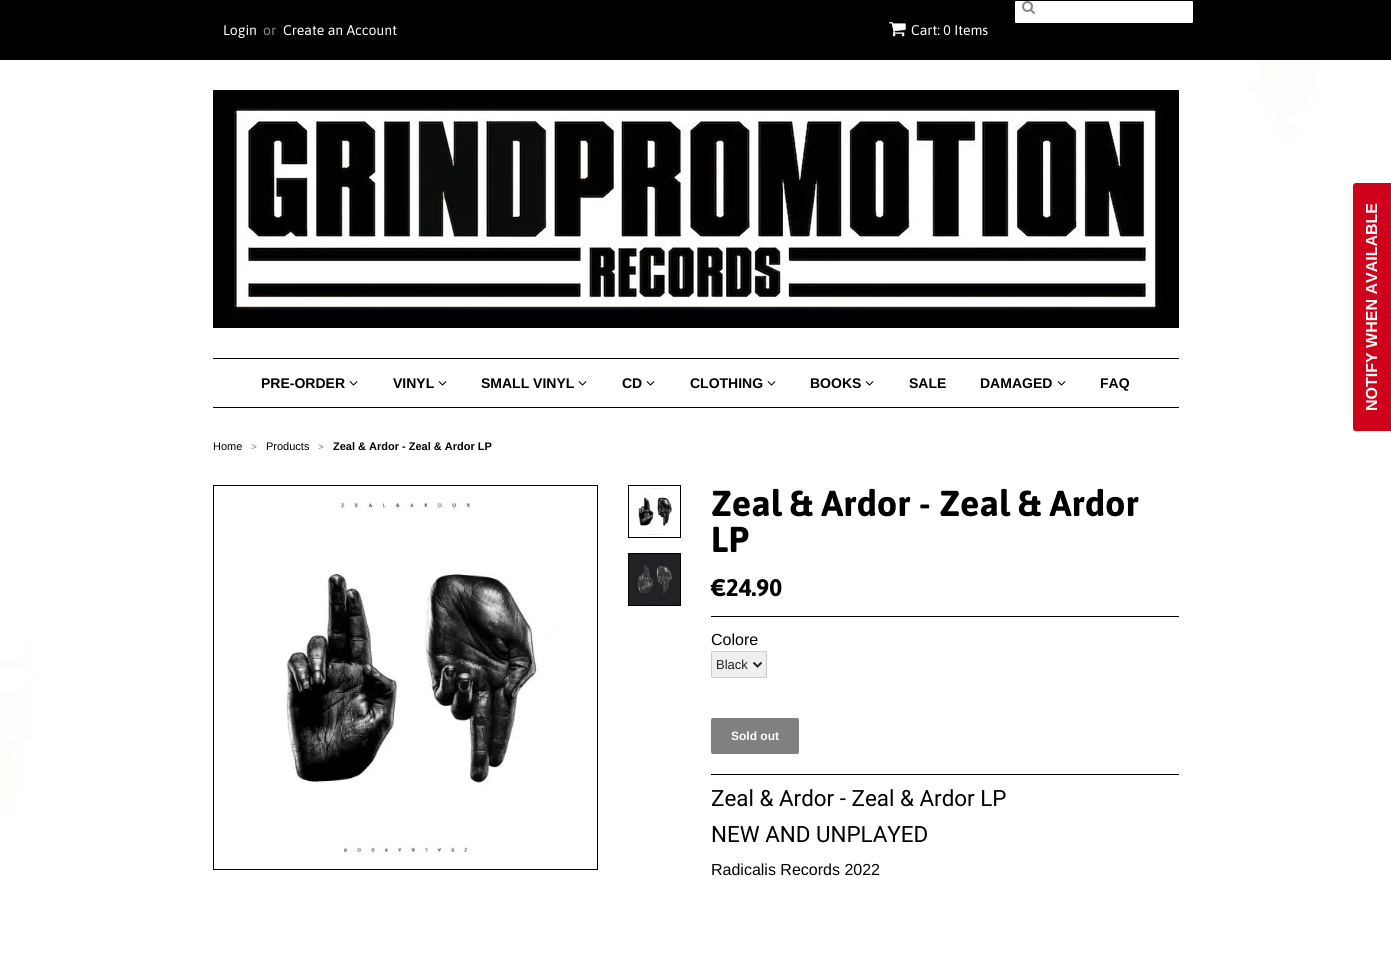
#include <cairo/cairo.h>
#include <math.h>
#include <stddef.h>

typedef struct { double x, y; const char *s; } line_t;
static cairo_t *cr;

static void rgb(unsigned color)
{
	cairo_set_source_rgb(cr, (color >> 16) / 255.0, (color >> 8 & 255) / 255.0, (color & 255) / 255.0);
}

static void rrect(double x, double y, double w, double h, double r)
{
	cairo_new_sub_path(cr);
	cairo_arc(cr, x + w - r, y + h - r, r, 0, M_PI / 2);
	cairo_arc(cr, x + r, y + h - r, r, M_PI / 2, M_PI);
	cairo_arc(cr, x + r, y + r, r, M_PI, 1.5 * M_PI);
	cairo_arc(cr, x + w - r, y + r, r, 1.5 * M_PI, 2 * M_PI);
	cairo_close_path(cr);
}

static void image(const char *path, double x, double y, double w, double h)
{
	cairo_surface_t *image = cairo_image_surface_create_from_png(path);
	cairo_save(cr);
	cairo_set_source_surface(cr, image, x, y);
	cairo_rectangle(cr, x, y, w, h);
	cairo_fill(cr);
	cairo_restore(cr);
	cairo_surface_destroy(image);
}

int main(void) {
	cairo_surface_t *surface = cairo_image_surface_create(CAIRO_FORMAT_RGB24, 1391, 968);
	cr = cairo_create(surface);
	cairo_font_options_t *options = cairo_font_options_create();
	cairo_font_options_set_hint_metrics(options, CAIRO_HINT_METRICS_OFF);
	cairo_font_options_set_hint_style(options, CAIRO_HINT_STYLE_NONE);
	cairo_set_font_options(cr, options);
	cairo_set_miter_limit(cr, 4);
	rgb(0xffffff);
	cairo_paint(cr);
	image("img/1.png", 0, 60, 1322, 754);
	rgb(0x000000);
	cairo_rectangle(cr, 0, 0, 1391, 60);
	cairo_fill(cr);
	rgb(0xffffff);
	rrect(1014.5, 0.5, 179, 23, 1.5);
	cairo_fill_preserve(cr);
	rgb(0x000000);
	cairo_set_line_width(cr, 1);
	cairo_stroke(cr);
	image("img/2.png", 1022, 1, 13, 13);
	image("img/3.png", 889, 22, 17, 15);
	rgb(0xd0021b);
	cairo_new_path(cr);
	cairo_move_to(cr, 1353, 428);
	cairo_line_to(cr, 1353, 186);
	cairo_curve_to(cr, 1353, 185, 1354, 183, 1356, 183);
	cairo_line_to(cr, 1391, 183);
	cairo_line_to(cr, 1391, 431);
	cairo_line_to(cr, 1356, 431);
	cairo_curve_to(cr, 1354, 431, 1353, 430, 1353, 428);
	cairo_close_path(cr);
	cairo_fill(cr);
	rgb(0xffffff);
	cairo_rectangle(cr, 556, 60, 630, 568);
	cairo_fill(cr);
	image("img/4.png", 213, 90, 966, 238);
	rgb(0x000000);
	cairo_rectangle(cr, 213, 358, 966, 1);
	cairo_fill(cr);
	cairo_rectangle(cr, 213, 407, 966, 1);
	cairo_fill(cr);
	image("img/5.png", 349, 381, 9, 5);
	image("img/5.png", 438, 381, 9, 5);
	image("img/5.png", 578, 381, 9, 5);
	image("img/5.png", 646, 381, 9, 5);
	image("img/5.png", 767, 381, 9, 5);
	image("img/5.png", 865, 381, 9, 5);
	image("img/5.png", 1057, 381, 9, 5);
	cairo_rectangle(cr, 213.5, 485.5, 384, 384);
	cairo_stroke(cr);
	image("img/6.png", 285, 501, 254, 353);
	cairo_rectangle(cr, 628.5, 485.5, 52, 52);
	cairo_stroke(cr);
	image("img/7.png", 638, 488, 35, 47);
	cairo_rectangle(cr, 628.5, 553.5, 52, 52);
	cairo_stroke(cr);
	image("img/8.png", 629, 554, 51, 51);
	cairo_rectangle(cr, 711, 616, 468, 1);
	cairo_fill(cr);
	cairo_rectangle(cr, 711, 774, 468, 1);
	cairo_fill(cr);
	rgb(0xefefef);
	rrect(711.5, 651.5, 55, 26, 0.5);
	cairo_fill_preserve(cr);
	rgb(0xcccccc);
	cairo_stroke(cr);
	cairo_new_path(cr);
	cairo_move_to(cr, 753.5, 662.5);
	cairo_line_to(cr, 757.5, 666.5);
	cairo_line_to(cr, 761.5, 662.5);
	rgb(0x222222);
	cairo_set_line_width(cr, 2);
	cairo_stroke(cr);
	rgb(0x808080);
	rrect(711, 718, 88, 36, 2);
	cairo_fill(cr);
	cairo_select_font_face(cr, "Asap", CAIRO_FONT_SLANT_NORMAL, CAIRO_FONT_WEIGHT_NORMAL);
	cairo_set_font_size(cr, 14);
	rgb(0xffffff);
	cairo_move_to(cr, 223, 35);
	cairo_show_text(cr, "Login");
	rgb(0x888888);
	cairo_move_to(cr, 263, 35);
	cairo_show_text(cr, "or");
	rgb(0xffffff);
	cairo_move_to(cr, 283, 35);
	cairo_show_text(cr, "Create an Account");
	cairo_move_to(cr, 911, 35);
	cairo_show_text(cr, "Cart: 0 Items");
	cairo_select_font_face(cr, "Liberation Sans", CAIRO_FONT_SLANT_NORMAL, CAIRO_FONT_WEIGHT_BOLD);
	cairo_set_font_size(cr, 16);
	cairo_save(cr);
	cairo_translate(cr, 1377, 411);
	cairo_rotate(cr, -90 * M_PI / 180);
	cairo_move_to(cr, 0, 0);
	cairo_show_text(cr, "NOTIFY WHEN AVAILABLE");
	cairo_restore(cr);
	cairo_set_font_size(cr, 14);
	rgb(0x000000);
	{
		static const line_t items[] = {
			{261, 388, "PRE-ORDER"},
			{393, 388, "VINYL"},
			{481, 388, "SMALL VINYL"},
			{622, 388, "CD"},
			{690, 388, "CLOTHING"},
			{810, 388, "BOOKS"},
			{909, 388, "SALE"},
			{980, 388, "DAMAGED"},
			{1100, 388, "FAQ"},
		};
		for (size_t i = 0; i < sizeof items / sizeof *items; i++) {
			cairo_move_to(cr, items[i].x, items[i].y);
			cairo_show_text(cr, items[i].s);
		}
	}
	cairo_select_font_face(cr, "Liberation Sans", CAIRO_FONT_SLANT_NORMAL, CAIRO_FONT_WEIGHT_NORMAL);
	cairo_set_font_size(cr, 11);
	cairo_move_to(cr, 213, 450);
	cairo_show_text(cr, "Home");
	cairo_set_font_size(cr, 10);
	rgb(0x808080);
	cairo_move_to(cr, 251, 450);
	cairo_show_text(cr, ">");
	cairo_set_font_size(cr, 11);
	rgb(0x000000);
	cairo_move_to(cr, 266, 450);
	cairo_show_text(cr, "Products");
	cairo_set_font_size(cr, 10);
	rgb(0x808080);
	cairo_move_to(cr, 318, 450);
	cairo_show_text(cr, ">");
	cairo_select_font_face(cr, "Liberation Sans", CAIRO_FONT_SLANT_NORMAL, CAIRO_FONT_WEIGHT_BOLD);
	cairo_set_font_size(cr, 11);
	rgb(0x000000);
	cairo_move_to(cr, 333, 450);
	cairo_show_text(cr, "Zeal & Ardor - Zeal & Ardor LP");
	cairo_select_font_face(cr, "Asap", CAIRO_FONT_SLANT_NORMAL, CAIRO_FONT_WEIGHT_BOLD);
	cairo_set_font_size(cr, 36);
	cairo_move_to(cr, 711, 516);
	cairo_show_text(cr, "Zeal & Ardor - Zeal & Ardor");
	cairo_move_to(cr, 711, 552);
	cairo_show_text(cr, "LP");
	cairo_set_font_size(cr, 24);
	cairo_move_to(cr, 711, 596);
	cairo_show_text(cr, "€24.90");
	cairo_select_font_face(cr, "Liberation Sans", CAIRO_FONT_SLANT_NORMAL, CAIRO_FONT_WEIGHT_NORMAL);
	cairo_set_font_size(cr, 16);
	cairo_move_to(cr, 711, 645);
	cairo_show_text(cr, "Colore");
	cairo_set_font_size(cr, 13);
	rgb(0x222222);
	cairo_move_to(cr, 716, 669);
	cairo_show_text(cr, "Black");
	cairo_select_font_face(cr, "Liberation Sans", CAIRO_FONT_SLANT_NORMAL, CAIRO_FONT_WEIGHT_BOLD);
	cairo_set_font_size(cr, 12);
	rgb(0xffffff);
	cairo_move_to(cr, 731, 740);
	cairo_show_text(cr, "Sold out");
	cairo_select_font_face(cr, "Roboto", CAIRO_FONT_SLANT_NORMAL, CAIRO_FONT_WEIGHT_NORMAL);
	cairo_set_font_size(cr, 22.4);
	rgb(0x000000);
	cairo_move_to(cr, 711, 806);
	cairo_show_text(cr, "Zeal & Ardor - Zeal & Ardor LP");
	cairo_move_to(cr, 711, 842);
	cairo_show_text(cr, "NEW AND UNPLAYED");
	cairo_select_font_face(cr, "Liberation Sans", CAIRO_FONT_SLANT_NORMAL, CAIRO_FONT_WEIGHT_NORMAL);
	cairo_set_font_size(cr, 16);
	cairo_move_to(cr, 711, 875);
	cairo_show_text(cr, "Radicalis Records 2022");
	cairo_surface_write_to_png(surface, "page.png");
	cairo_font_options_destroy(options);
	cairo_destroy(cr);
	cairo_surface_destroy(surface);
	return 0;
}
